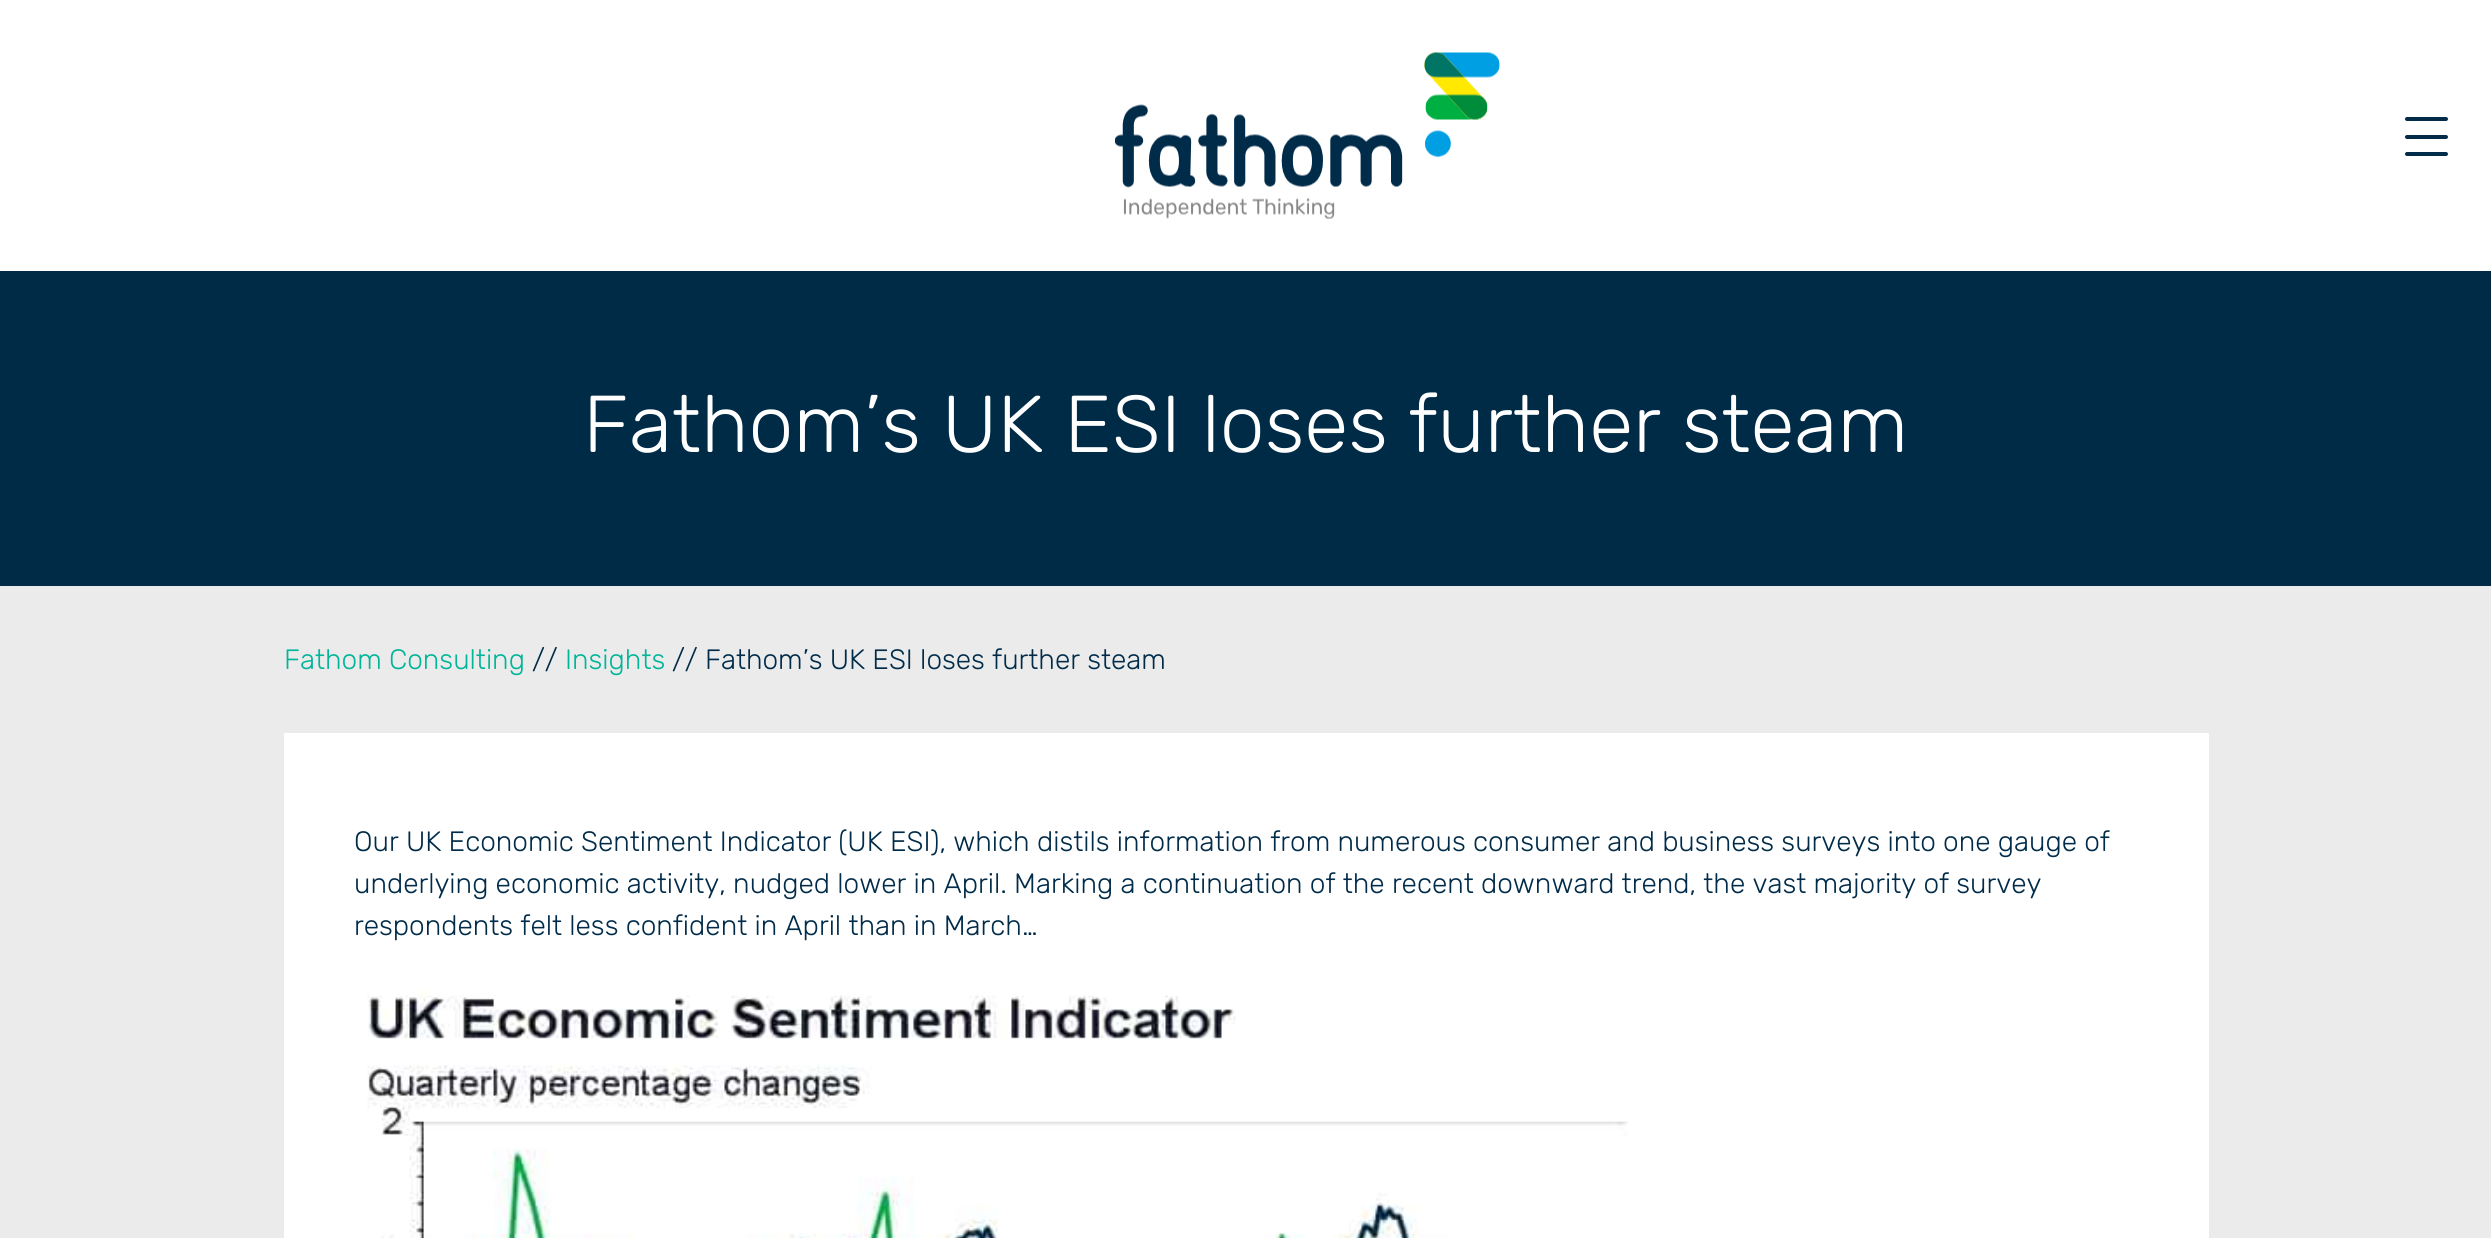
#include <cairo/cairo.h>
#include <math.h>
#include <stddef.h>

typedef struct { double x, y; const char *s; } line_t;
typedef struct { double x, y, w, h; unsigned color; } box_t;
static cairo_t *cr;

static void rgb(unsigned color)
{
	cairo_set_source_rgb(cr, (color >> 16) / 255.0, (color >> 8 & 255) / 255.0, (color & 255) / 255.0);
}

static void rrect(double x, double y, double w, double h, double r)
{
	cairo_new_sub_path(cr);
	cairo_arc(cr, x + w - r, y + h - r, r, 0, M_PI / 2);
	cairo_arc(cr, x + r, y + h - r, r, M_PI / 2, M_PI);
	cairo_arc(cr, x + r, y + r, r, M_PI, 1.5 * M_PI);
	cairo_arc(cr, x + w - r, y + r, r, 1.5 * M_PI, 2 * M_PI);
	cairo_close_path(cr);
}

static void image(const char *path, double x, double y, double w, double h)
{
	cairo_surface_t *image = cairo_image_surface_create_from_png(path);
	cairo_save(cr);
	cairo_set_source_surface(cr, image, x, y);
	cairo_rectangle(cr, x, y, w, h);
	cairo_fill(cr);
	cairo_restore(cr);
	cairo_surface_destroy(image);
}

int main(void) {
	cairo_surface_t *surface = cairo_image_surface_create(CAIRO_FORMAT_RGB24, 2491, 1238);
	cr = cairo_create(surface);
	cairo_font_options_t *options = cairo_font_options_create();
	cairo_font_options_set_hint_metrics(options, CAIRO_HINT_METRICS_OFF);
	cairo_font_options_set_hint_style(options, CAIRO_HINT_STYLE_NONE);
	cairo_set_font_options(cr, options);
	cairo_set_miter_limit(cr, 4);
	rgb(0xffffff);
	cairo_paint(cr);
	image("img/1.png", 1115, 52, 385, 167);
	rgb(0x002b49);
	rrect(2405, 135, 43, 4, 2);
	cairo_fill(cr);
	rrect(2405, 117, 43, 4, 2);
	cairo_fill(cr);
	rrect(2405, 152, 43, 4, 2);
	cairo_fill(cr);
	{
		static const box_t items[] = {
			{0, 586, 2491, 652, 0xebebeb},
			{0, 271, 2491, 315, 0x002b47},
			{284, 733, 1925, 505, 0xffffff},
		};
		for (size_t i = 0; i < sizeof items / sizeof *items; i++) {
			rgb(items[i].color);
			cairo_rectangle(cr, items[i].x, items[i].y, items[i].w, items[i].h);
			cairo_fill(cr);
		}
	}
	image("img/2.png", 367, 988, 1261, 250);
	cairo_select_font_face(cr, "Rubik Light", CAIRO_FONT_SLANT_NORMAL, CAIRO_FONT_WEIGHT_NORMAL);
	cairo_set_font_size(cr, 80.5);
	cairo_move_to(cr, 583, 452);
	cairo_show_text(cr, "Fathom’s UK ESI loses further steam");
	cairo_set_font_size(cr, 28);
	rgb(0x00b598);
	cairo_move_to(cr, 284, 669);
	cairo_show_text(cr, "Fathom Consulting");
	rgb(0x002b49);
	cairo_move_to(cr, 532, 669);
	cairo_show_text(cr, "//");
	rgb(0x00b598);
	cairo_move_to(cr, 565, 669);
	cairo_show_text(cr, "Insights");
	rgb(0x002b49);
	{
		static const line_t items[] = {
			{672, 669, "// Fathom’s UK ESI loses further steam"},
			{354, 851, "Our UK Economic Sentiment Indicator (UK ESI), which distils information from numerous consumer and business surveys into one gauge of"},
			{354, 893, "underlying economic activity, nudged lower in April. Marking a continuation of the recent downward trend, the vast majority of survey"},
			{354, 935, "respondents felt less confident in April than in March…"},
		};
		for (size_t i = 0; i < sizeof items / sizeof *items; i++) {
			cairo_move_to(cr, items[i].x, items[i].y);
			cairo_show_text(cr, items[i].s);
		}
	}
	cairo_surface_write_to_png(surface, "page.png");
	cairo_font_options_destroy(options);
	cairo_destroy(cr);
	cairo_surface_destroy(surface);
	return 0;
}
